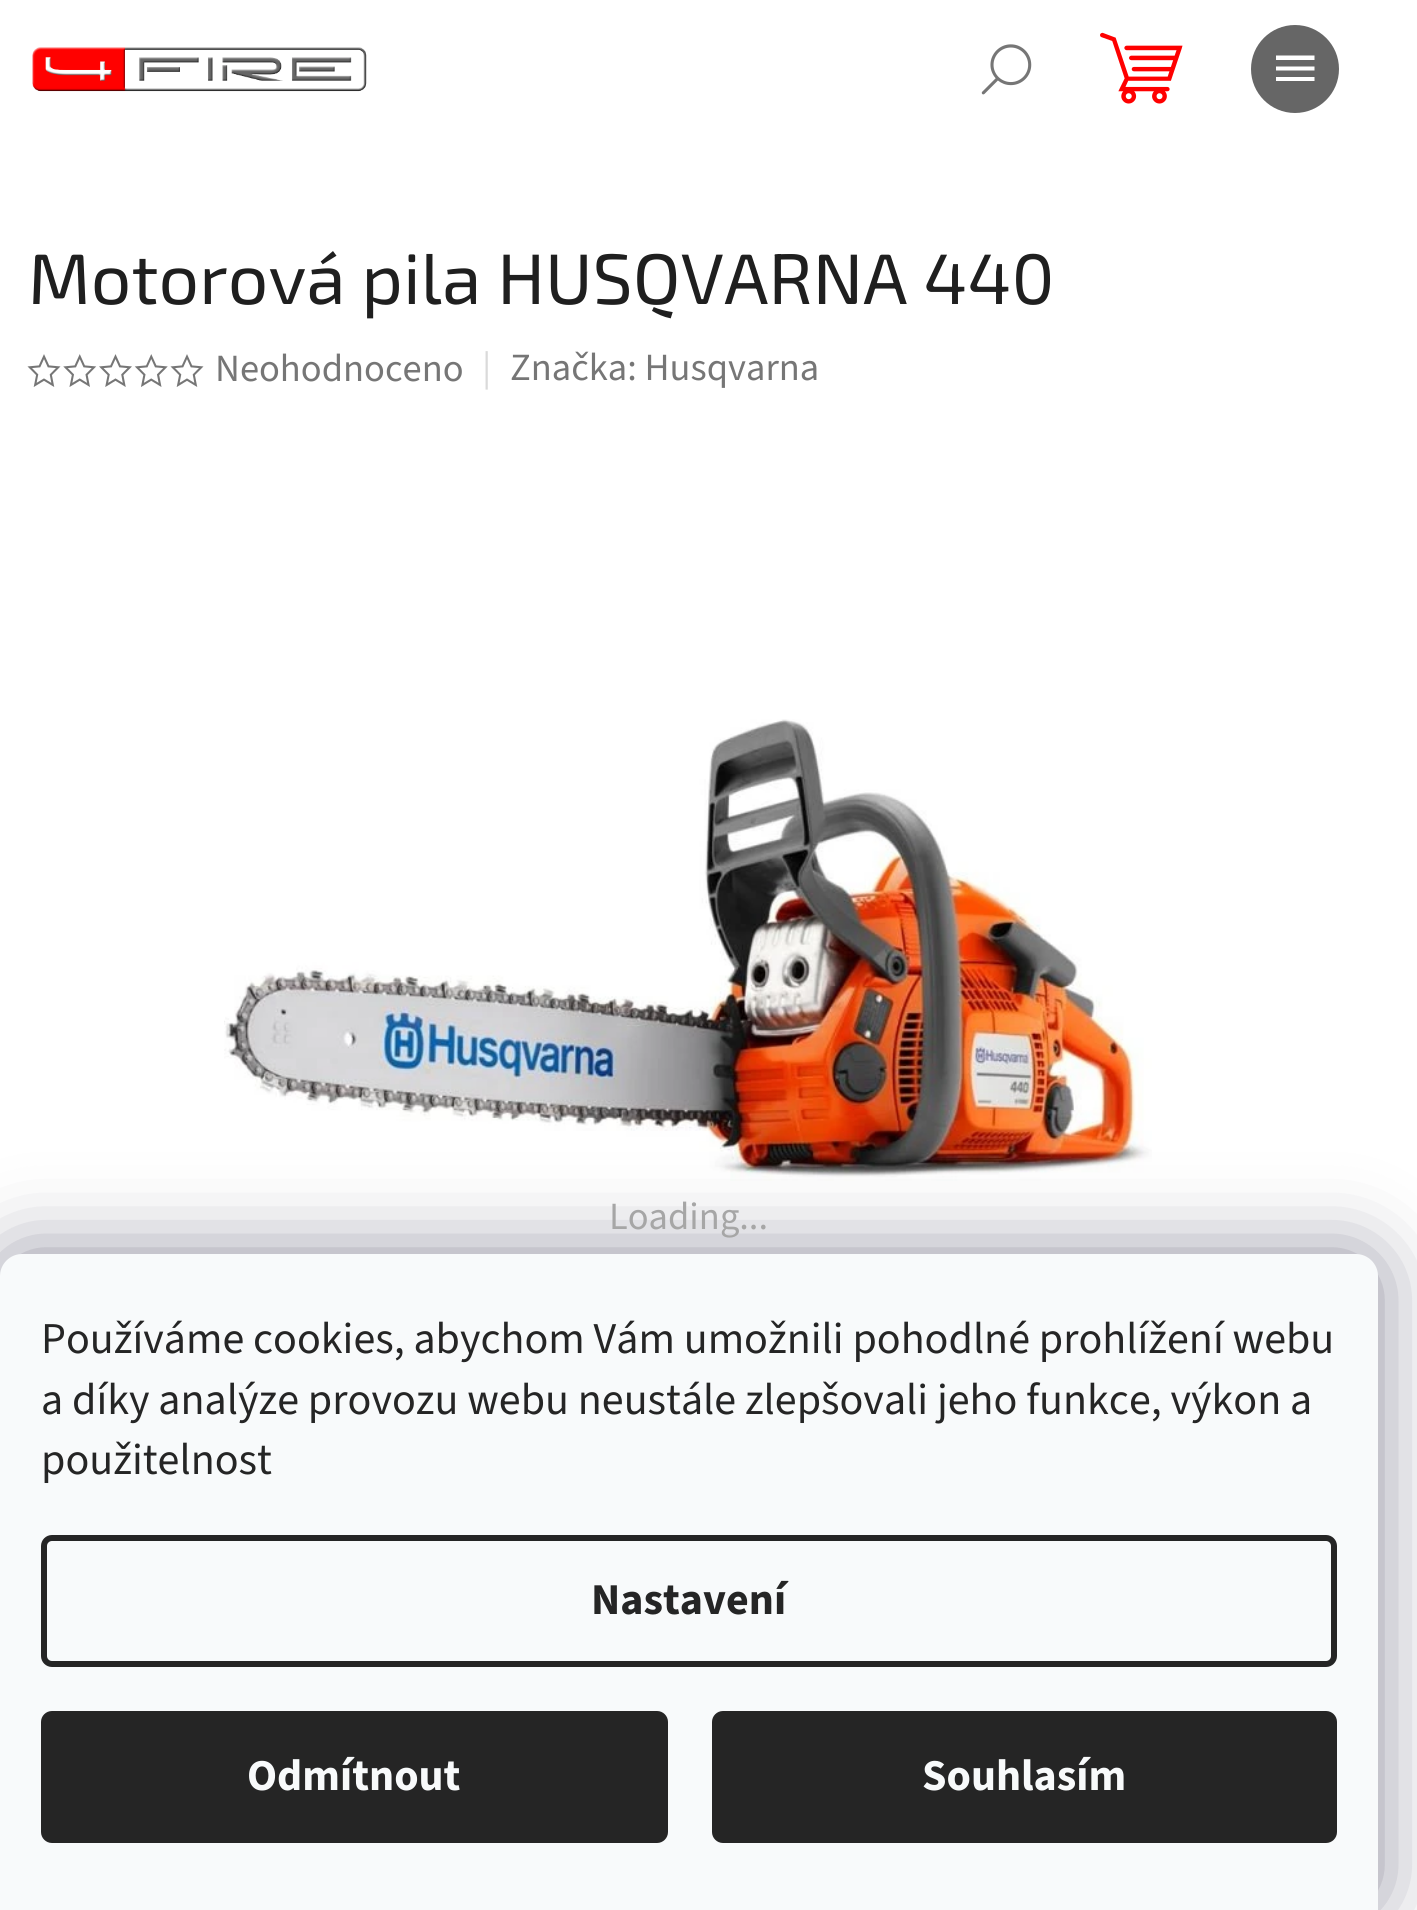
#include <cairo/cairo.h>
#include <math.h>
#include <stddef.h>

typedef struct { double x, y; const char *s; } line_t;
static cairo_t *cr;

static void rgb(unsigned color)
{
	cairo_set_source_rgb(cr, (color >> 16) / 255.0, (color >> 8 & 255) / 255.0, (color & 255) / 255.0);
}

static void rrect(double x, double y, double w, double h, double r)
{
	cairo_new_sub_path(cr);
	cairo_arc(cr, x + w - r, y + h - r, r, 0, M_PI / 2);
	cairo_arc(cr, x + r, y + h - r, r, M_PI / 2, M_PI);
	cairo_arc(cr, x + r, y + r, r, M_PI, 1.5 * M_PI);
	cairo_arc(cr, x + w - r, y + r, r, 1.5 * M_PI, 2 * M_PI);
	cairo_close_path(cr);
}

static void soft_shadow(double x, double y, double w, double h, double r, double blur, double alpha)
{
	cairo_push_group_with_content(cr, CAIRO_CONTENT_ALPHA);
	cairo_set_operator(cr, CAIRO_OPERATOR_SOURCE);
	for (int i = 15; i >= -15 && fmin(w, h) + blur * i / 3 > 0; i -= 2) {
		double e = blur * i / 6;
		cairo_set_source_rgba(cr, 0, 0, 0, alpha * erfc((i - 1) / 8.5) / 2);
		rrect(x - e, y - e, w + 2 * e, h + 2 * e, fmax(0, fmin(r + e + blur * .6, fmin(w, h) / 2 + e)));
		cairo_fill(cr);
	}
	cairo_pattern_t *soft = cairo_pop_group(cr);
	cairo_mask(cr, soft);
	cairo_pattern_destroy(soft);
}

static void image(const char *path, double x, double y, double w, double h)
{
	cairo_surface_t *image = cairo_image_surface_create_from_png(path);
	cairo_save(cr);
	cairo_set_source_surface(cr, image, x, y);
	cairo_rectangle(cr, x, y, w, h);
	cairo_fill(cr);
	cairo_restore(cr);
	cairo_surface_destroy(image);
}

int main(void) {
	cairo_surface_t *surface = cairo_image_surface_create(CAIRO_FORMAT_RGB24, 1417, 1910);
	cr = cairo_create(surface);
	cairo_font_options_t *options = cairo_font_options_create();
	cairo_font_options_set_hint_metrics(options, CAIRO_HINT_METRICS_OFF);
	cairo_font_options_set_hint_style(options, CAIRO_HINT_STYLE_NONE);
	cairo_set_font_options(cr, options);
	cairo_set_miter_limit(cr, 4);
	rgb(0xffffff);
	cairo_paint(cr);
	image("img/1.png", 981, 44, 51, 51);
	rgb(0x666666);
	cairo_arc(cr, 1295, 69, 44, 0, 2 * M_PI);
	cairo_fill(cr);
	rgb(0xffffff);
	cairo_new_path(cr);
	cairo_move_to(cr, 1276, 81);
	cairo_line_to(cr, 1314.5, 81);
	cairo_line_to(cr, 1314.5, 77);
	cairo_line_to(cr, 1276, 77);
	cairo_close_path(cr);
	cairo_move_to(cr, 1276, 70.5);
	cairo_line_to(cr, 1314.5, 70.5);
	cairo_line_to(cr, 1314.5, 66.5);
	cairo_line_to(cr, 1276, 66.5);
	cairo_close_path(cr);
	cairo_move_to(cr, 1276, 55.5);
	cairo_line_to(cr, 1276, 60);
	cairo_line_to(cr, 1314.5, 60);
	cairo_line_to(cr, 1314.5, 55.5);
	cairo_close_path(cr);
	cairo_fill(cr);
	image("img/2.png", 32, 47, 335, 45);
	image("img/3.png", 1100, 32, 83, 72);
	image("img/4.png", 27, 354, 34, 33);
	image("img/5.png", 63, 354, 34, 33);
	image("img/6.png", 99, 354, 33, 33);
	image("img/7.png", 134, 354, 34, 33);
	image("img/4.png", 170, 354, 34, 33);
	image("img/8.png", 224, 719, 928, 462);
	rgb(0x1b1939);
	soft_shadow(0, 1254, 1378, 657, 22, 41, 0.5);
	rgb(0xf8fafb);
	cairo_new_path(cr);
	cairo_move_to(cr, 22, 1254);
	cairo_line_to(cr, 1356, 1254);
	cairo_curve_to(cr, 1368, 1254, 1378, 1264, 1378, 1276);
	cairo_line_to(cr, 1378, 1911);
	cairo_line_to(cr, 0, 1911);
	cairo_line_to(cr, 0, 1276);
	cairo_curve_to(cr, 0, 1264, 10, 1254, 22, 1254);
	cairo_close_path(cr);
	cairo_fill(cr);
	rrect(44, 1538, 1290, 126, 8);
	rgb(0x252525);
	cairo_set_line_width(cr, 6);
	cairo_stroke(cr);
	rrect(41, 1711, 627, 132, 11);
	cairo_fill(cr);
	rrect(712, 1711, 625, 132, 11);
	cairo_fill(cr);
	cairo_select_font_face(cr, "Exo 2", CAIRO_FONT_SLANT_NORMAL, CAIRO_FONT_WEIGHT_NORMAL);
	cairo_set_font_size(cr, 71.5);
	rgb(0x1f1f1f);
	cairo_move_to(cr, 28, 304);
	cairo_show_text(cr, "Motorová pila HUSQVARNA 440");
	cairo_select_font_face(cr, "Source Sans 3", CAIRO_FONT_SLANT_NORMAL, CAIRO_FONT_WEIGHT_NORMAL);
	cairo_set_font_size(cr, 38.5);
	rgb(0x767676);
	cairo_move_to(cr, 215, 381);
	cairo_show_text(cr, "Neohodnoceno");
	rgb(0xdadada);
	cairo_move_to(cr, 482, 380);
	cairo_show_text(cr, "|");
	rgb(0x767676);
	cairo_move_to(cr, 510, 380);
	cairo_show_text(cr, "Značka: Husqvarna");
	rgb(0xa6a6a6);
	cairo_move_to(cr, 609, 1229);
	cairo_show_text(cr, "Loading...");
	cairo_set_font_size(cr, 44);
	rgb(0x252525);
	{
		static const line_t items[] = {
			{41, 1353, "Používáme cookies, abychom Vám umožnili pohodlné prohlížení webu"},
			{41, 1414, "a díky analýze provozu webu neustále zlepšovali jeho funkce, výkon a"},
			{41, 1474, "použitelnost"},
		};
		for (size_t i = 0; i < sizeof items / sizeof *items; i++) {
			cairo_move_to(cr, items[i].x, items[i].y);
			cairo_show_text(cr, items[i].s);
		}
	}
	cairo_select_font_face(cr, "Source Sans 3", CAIRO_FONT_SLANT_NORMAL, CAIRO_FONT_WEIGHT_BOLD);
	cairo_move_to(cr, 591, 1614);
	cairo_show_text(cr, "Nastavení");
	rgb(0xf8fafb);
	cairo_move_to(cr, 247, 1790);
	cairo_show_text(cr, "Odmítnout");
	cairo_move_to(cr, 922, 1790);
	cairo_show_text(cr, "Souhlasím");
	cairo_surface_write_to_png(surface, "page.png");
	cairo_font_options_destroy(options);
	cairo_destroy(cr);
	cairo_surface_destroy(surface);
	return 0;
}
